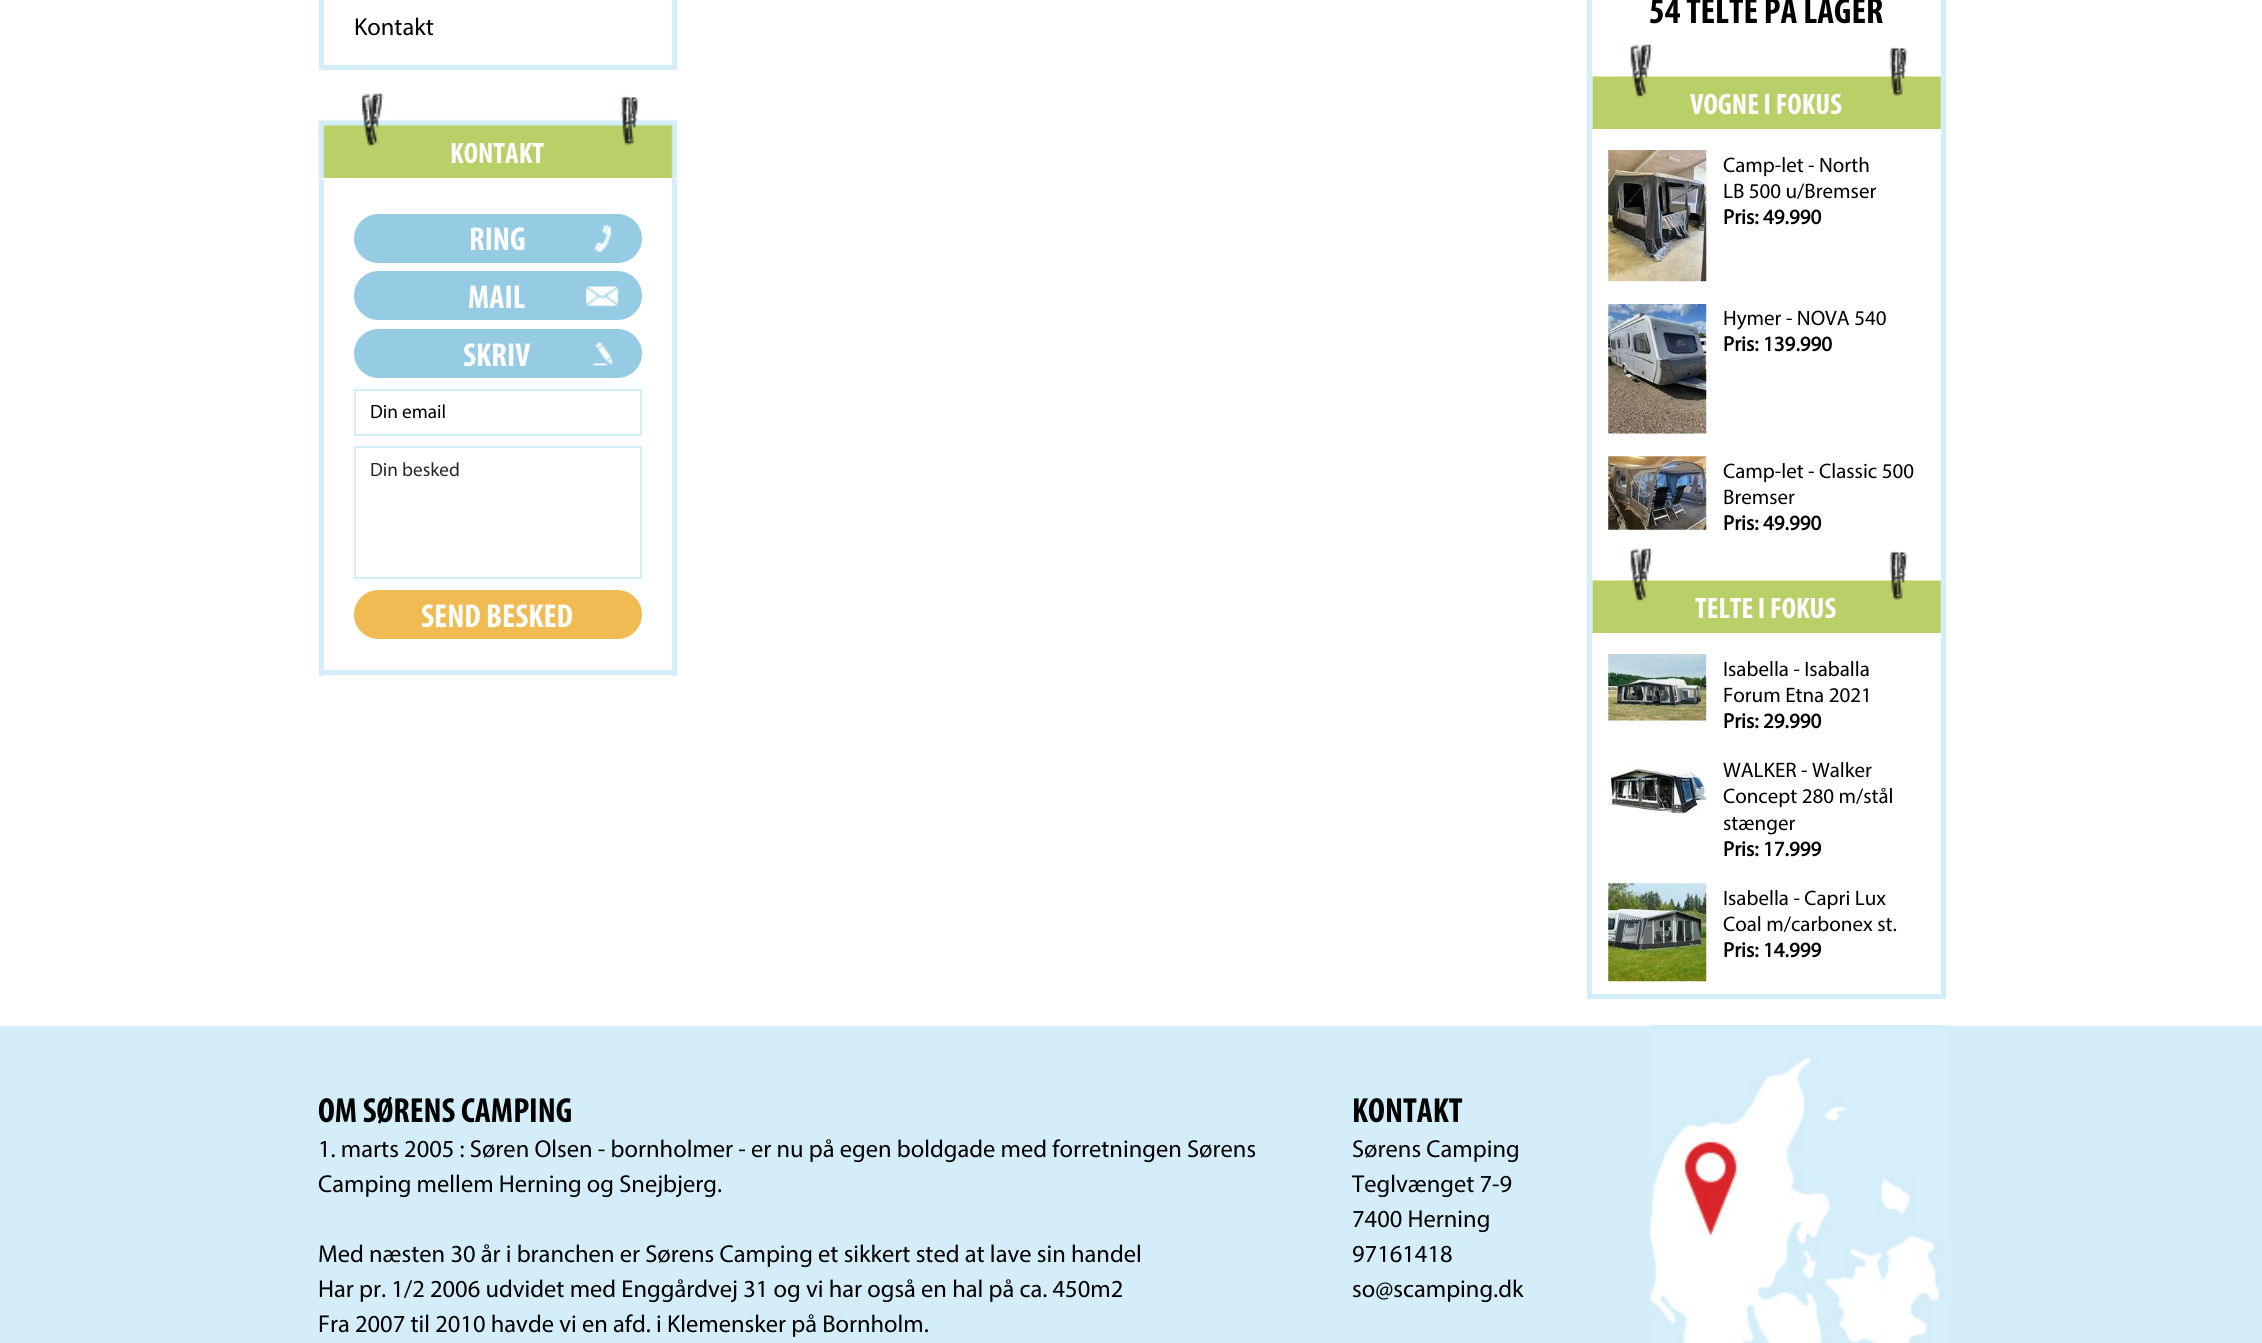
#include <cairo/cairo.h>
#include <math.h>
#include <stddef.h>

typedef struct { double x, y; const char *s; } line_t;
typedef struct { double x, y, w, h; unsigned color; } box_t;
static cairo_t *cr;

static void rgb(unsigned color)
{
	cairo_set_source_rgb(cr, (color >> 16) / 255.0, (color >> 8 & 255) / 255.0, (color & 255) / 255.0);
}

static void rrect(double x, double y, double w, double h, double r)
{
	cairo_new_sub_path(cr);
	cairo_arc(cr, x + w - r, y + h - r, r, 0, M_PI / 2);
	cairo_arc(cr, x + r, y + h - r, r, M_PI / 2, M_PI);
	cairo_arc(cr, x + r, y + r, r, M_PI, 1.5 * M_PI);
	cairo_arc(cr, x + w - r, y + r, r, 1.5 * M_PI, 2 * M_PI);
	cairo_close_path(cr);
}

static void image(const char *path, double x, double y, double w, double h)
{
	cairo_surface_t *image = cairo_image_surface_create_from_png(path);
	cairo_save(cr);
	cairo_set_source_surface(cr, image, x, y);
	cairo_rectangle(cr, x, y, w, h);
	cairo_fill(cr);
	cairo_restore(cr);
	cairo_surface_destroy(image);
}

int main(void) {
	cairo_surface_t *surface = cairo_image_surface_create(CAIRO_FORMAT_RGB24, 2262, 1343);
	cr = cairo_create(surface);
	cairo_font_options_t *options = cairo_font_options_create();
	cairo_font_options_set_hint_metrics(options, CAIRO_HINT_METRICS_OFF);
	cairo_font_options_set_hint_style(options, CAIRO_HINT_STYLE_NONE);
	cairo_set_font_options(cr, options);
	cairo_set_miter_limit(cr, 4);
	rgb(0xffffff);
	cairo_paint(cr);
	{
		static const box_t items[] = {
			{672, 0, 5, 70, 0xd4eef9},
			{319, 65, 358, 5, 0xd4eef9},
			{319, 0, 5, 70, 0xd4eef9},
		};
		for (size_t i = 0; i < sizeof items / sizeof *items; i++) {
			rgb(items[i].color);
			cairo_rectangle(cr, items[i].x, items[i].y, items[i].w, items[i].h);
			cairo_fill(cr);
		}
	}
	image("img/1.png", 318, 92, 360, 86);
	{
		static const box_t items[] = {
			{672, 179, 5, 497, 0xd4eef9},
			{319, 670, 358, 5, 0xd4eef9},
			{319, 179, 5, 497, 0xd4eef9},
		};
		for (size_t i = 0; i < sizeof items / sizeof *items; i++) {
			rgb(items[i].color);
			cairo_rectangle(cr, items[i].x, items[i].y, items[i].w, items[i].h);
			cairo_fill(cr);
		}
	}
	rgb(0x96cbe4);
	rrect(354, 214, 288, 49, 24.5);
	cairo_fill(cr);
	image("img/2.png", 594, 224, 18, 28);
	rrect(354, 271, 288, 49, 24.5);
	cairo_fill(cr);
	image("img/3.png", 586, 286, 33, 21);
	rrect(354, 329, 288, 49, 24.5);
	cairo_fill(cr);
	image("img/4.png", 592, 342, 21, 24);
	cairo_rectangle(cr, 355, 390, 286, 45);
	rgb(0xd4eef9);
	cairo_stroke(cr);
	cairo_rectangle(cr, 355, 447, 286, 131);
	cairo_stroke(cr);
	rgb(0xf1bb54);
	rrect(354, 590, 288, 49, 24.5);
	cairo_fill(cr);
	cairo_rectangle(cr, 1589.5, -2.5, 354, 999);
	rgb(0xd4eef9);
	cairo_set_line_width(cr, 5);
	cairo_stroke(cr);
	image("img/5.png", 1592, 43, 349, 86);
	image("img/6.png", 1608, 150, 99, 132);
	image("img/7.png", 1608, 304, 99, 130);
	image("img/8.png", 1608, 456, 99, 74);
	image("img/5.png", 1592, 547, 349, 86);
	image("img/9.png", 1608, 654, 99, 67);
	image("img/10.png", 1608, 767, 99, 47);
	image("img/11.png", 1608, 883, 99, 99);
	cairo_rectangle(cr, 0, 1026, 2262, 317);
	cairo_fill(cr);
	image("img/12.png", 1650, 1025, 296, 318);
	cairo_select_font_face(cr, "Myriad", CAIRO_FONT_SLANT_NORMAL, CAIRO_FONT_WEIGHT_NORMAL);
	cairo_set_font_size(cr, 24.5);
	rgb(0x000000);
	cairo_move_to(cr, 354, 35);
	cairo_show_text(cr, "Kontakt");
	cairo_select_font_face(cr, "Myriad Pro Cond", CAIRO_FONT_SLANT_NORMAL, CAIRO_FONT_WEIGHT_BOLD);
	cairo_set_font_size(cr, 29.75);
	rgb(0xffffff);
	cairo_move_to(cr, 450, 163);
	cairo_show_text(cr, "KONTAKT");
	cairo_set_font_size(cr, 33.25);
	{
		static const line_t items[] = {
			{469, 250, "RING"},
			{468, 308, "MAIL"},
			{463, 366, "SKRIV"},
		};
		for (size_t i = 0; i < sizeof items / sizeof *items; i++) {
			cairo_move_to(cr, items[i].x, items[i].y);
			cairo_show_text(cr, items[i].s);
		}
	}
	cairo_select_font_face(cr, "Myriad", CAIRO_FONT_SLANT_NORMAL, CAIRO_FONT_WEIGHT_NORMAL);
	cairo_set_font_size(cr, 19.25);
	rgb(0x000000);
	cairo_move_to(cr, 370, 418);
	cairo_show_text(cr, "Din email");
	rgb(0x272727);
	cairo_move_to(cr, 370, 476);
	cairo_show_text(cr, "Din besked");
	cairo_select_font_face(cr, "Myriad Pro Cond", CAIRO_FONT_SLANT_NORMAL, CAIRO_FONT_WEIGHT_BOLD);
	cairo_set_font_size(cr, 33.25);
	rgb(0xffffff);
	cairo_move_to(cr, 421, 627);
	cairo_show_text(cr, "SEND BESKED");
	cairo_set_font_size(cr, 36.75);
	rgb(0x000000);
	cairo_move_to(cr, 1649, 23);
	cairo_show_text(cr, "54 TELTE PÅ LAGER");
	cairo_set_font_size(cr, 29.75);
	rgb(0xffffff);
	cairo_move_to(cr, 1690, 114);
	cairo_show_text(cr, "VOGNE I FOKUS");
	cairo_select_font_face(cr, "Myriad", CAIRO_FONT_SLANT_NORMAL, CAIRO_FONT_WEIGHT_NORMAL);
	cairo_set_font_size(cr, 21);
	rgb(0x000000);
	cairo_move_to(cr, 1723, 172);
	cairo_show_text(cr, "Camp-let - North");
	cairo_move_to(cr, 1723, 198);
	cairo_show_text(cr, "LB 500 u/Bremser");
	cairo_select_font_face(cr, "Myriad", CAIRO_FONT_SLANT_NORMAL, CAIRO_FONT_WEIGHT_BOLD);
	cairo_move_to(cr, 1723, 224);
	cairo_show_text(cr, "Pris: 49.990");
	cairo_select_font_face(cr, "Myriad", CAIRO_FONT_SLANT_NORMAL, CAIRO_FONT_WEIGHT_NORMAL);
	cairo_move_to(cr, 1723, 325);
	cairo_show_text(cr, "Hymer - NOVA 540");
	cairo_select_font_face(cr, "Myriad", CAIRO_FONT_SLANT_NORMAL, CAIRO_FONT_WEIGHT_BOLD);
	cairo_move_to(cr, 1723, 351);
	cairo_show_text(cr, "Pris: 139.990");
	cairo_select_font_face(cr, "Myriad", CAIRO_FONT_SLANT_NORMAL, CAIRO_FONT_WEIGHT_NORMAL);
	cairo_move_to(cr, 1723, 478);
	cairo_show_text(cr, "Camp-let - Classic 500");
	cairo_move_to(cr, 1723, 504);
	cairo_show_text(cr, "Bremser");
	cairo_select_font_face(cr, "Myriad", CAIRO_FONT_SLANT_NORMAL, CAIRO_FONT_WEIGHT_BOLD);
	cairo_move_to(cr, 1723, 530);
	cairo_show_text(cr, "Pris: 49.990");
	cairo_select_font_face(cr, "Myriad Pro Cond", CAIRO_FONT_SLANT_NORMAL, CAIRO_FONT_WEIGHT_BOLD);
	cairo_set_font_size(cr, 29.75);
	rgb(0xffffff);
	cairo_move_to(cr, 1695, 618);
	cairo_show_text(cr, "TELTE I FOKUS");
	cairo_select_font_face(cr, "Myriad", CAIRO_FONT_SLANT_NORMAL, CAIRO_FONT_WEIGHT_NORMAL);
	cairo_set_font_size(cr, 21);
	rgb(0x000000);
	cairo_move_to(cr, 1723, 676);
	cairo_show_text(cr, "Isabella - Isaballa");
	cairo_move_to(cr, 1723, 702);
	cairo_show_text(cr, "Forum Etna 2021");
	cairo_select_font_face(cr, "Myriad", CAIRO_FONT_SLANT_NORMAL, CAIRO_FONT_WEIGHT_BOLD);
	cairo_move_to(cr, 1723, 728);
	cairo_show_text(cr, "Pris: 29.990");
	cairo_select_font_face(cr, "Myriad", CAIRO_FONT_SLANT_NORMAL, CAIRO_FONT_WEIGHT_NORMAL);
	{
		static const line_t items[] = {
			{1723, 777, "WALKER - Walker"},
			{1723, 803, "Concept 280 m/stål"},
			{1723, 830, "stænger"},
		};
		for (size_t i = 0; i < sizeof items / sizeof *items; i++) {
			cairo_move_to(cr, items[i].x, items[i].y);
			cairo_show_text(cr, items[i].s);
		}
	}
	cairo_select_font_face(cr, "Myriad", CAIRO_FONT_SLANT_NORMAL, CAIRO_FONT_WEIGHT_BOLD);
	cairo_move_to(cr, 1723, 856);
	cairo_show_text(cr, "Pris: 17.999");
	cairo_select_font_face(cr, "Myriad", CAIRO_FONT_SLANT_NORMAL, CAIRO_FONT_WEIGHT_NORMAL);
	cairo_move_to(cr, 1723, 905);
	cairo_show_text(cr, "Isabella - Capri Lux");
	cairo_move_to(cr, 1723, 931);
	cairo_show_text(cr, "Coal m/carbonex st.");
	cairo_select_font_face(cr, "Myriad", CAIRO_FONT_SLANT_NORMAL, CAIRO_FONT_WEIGHT_BOLD);
	cairo_move_to(cr, 1723, 957);
	cairo_show_text(cr, "Pris: 14.999");
	cairo_select_font_face(cr, "Myriad Pro Cond", CAIRO_FONT_SLANT_NORMAL, CAIRO_FONT_WEIGHT_BOLD);
	cairo_set_font_size(cr, 35);
	cairo_move_to(cr, 318, 1122);
	cairo_show_text(cr, "OM SØRENS CAMPING");
	cairo_select_font_face(cr, "Myriad", CAIRO_FONT_SLANT_NORMAL, CAIRO_FONT_WEIGHT_NORMAL);
	cairo_set_font_size(cr, 24.5);
	{
		static const line_t items[] = {
			{318, 1157, "1. marts 2005 : Søren Olsen - bornholmer - er nu på egen boldgade med forretningen Sørens"},
			{318, 1192, "Camping mellem Herning og Snejbjerg."},
			{318, 1262, "Med næsten 30 år i branchen er Sørens Camping et sikkert sted at lave sin handel"},
			{318, 1297, "Har pr. 1/2 2006 udvidet med Enggårdvej 31 og vi har også en hal på ca. 450m2"},
			{318, 1332, "Fra 2007 til 2010 havde vi en afd. i Klemensker på Bornholm."},
		};
		for (size_t i = 0; i < sizeof items / sizeof *items; i++) {
			cairo_move_to(cr, items[i].x, items[i].y);
			cairo_show_text(cr, items[i].s);
		}
	}
	cairo_select_font_face(cr, "Myriad Pro Cond", CAIRO_FONT_SLANT_NORMAL, CAIRO_FONT_WEIGHT_BOLD);
	cairo_set_font_size(cr, 35);
	cairo_move_to(cr, 1352, 1122);
	cairo_show_text(cr, "KONTAKT");
	cairo_select_font_face(cr, "Myriad", CAIRO_FONT_SLANT_NORMAL, CAIRO_FONT_WEIGHT_NORMAL);
	cairo_set_font_size(cr, 24.5);
	{
		static const line_t items[] = {
			{1352, 1157, "Sørens Camping"},
			{1352, 1192, "Teglvænget 7-9"},
			{1352, 1227, "7400 Herning"},
			{1352, 1262, "97161418"},
			{1352, 1297, "so@scamping.dk"},
		};
		for (size_t i = 0; i < sizeof items / sizeof *items; i++) {
			cairo_move_to(cr, items[i].x, items[i].y);
			cairo_show_text(cr, items[i].s);
		}
	}
	cairo_surface_write_to_png(surface, "page.png");
	cairo_font_options_destroy(options);
	cairo_destroy(cr);
	cairo_surface_destroy(surface);
	return 0;
}
